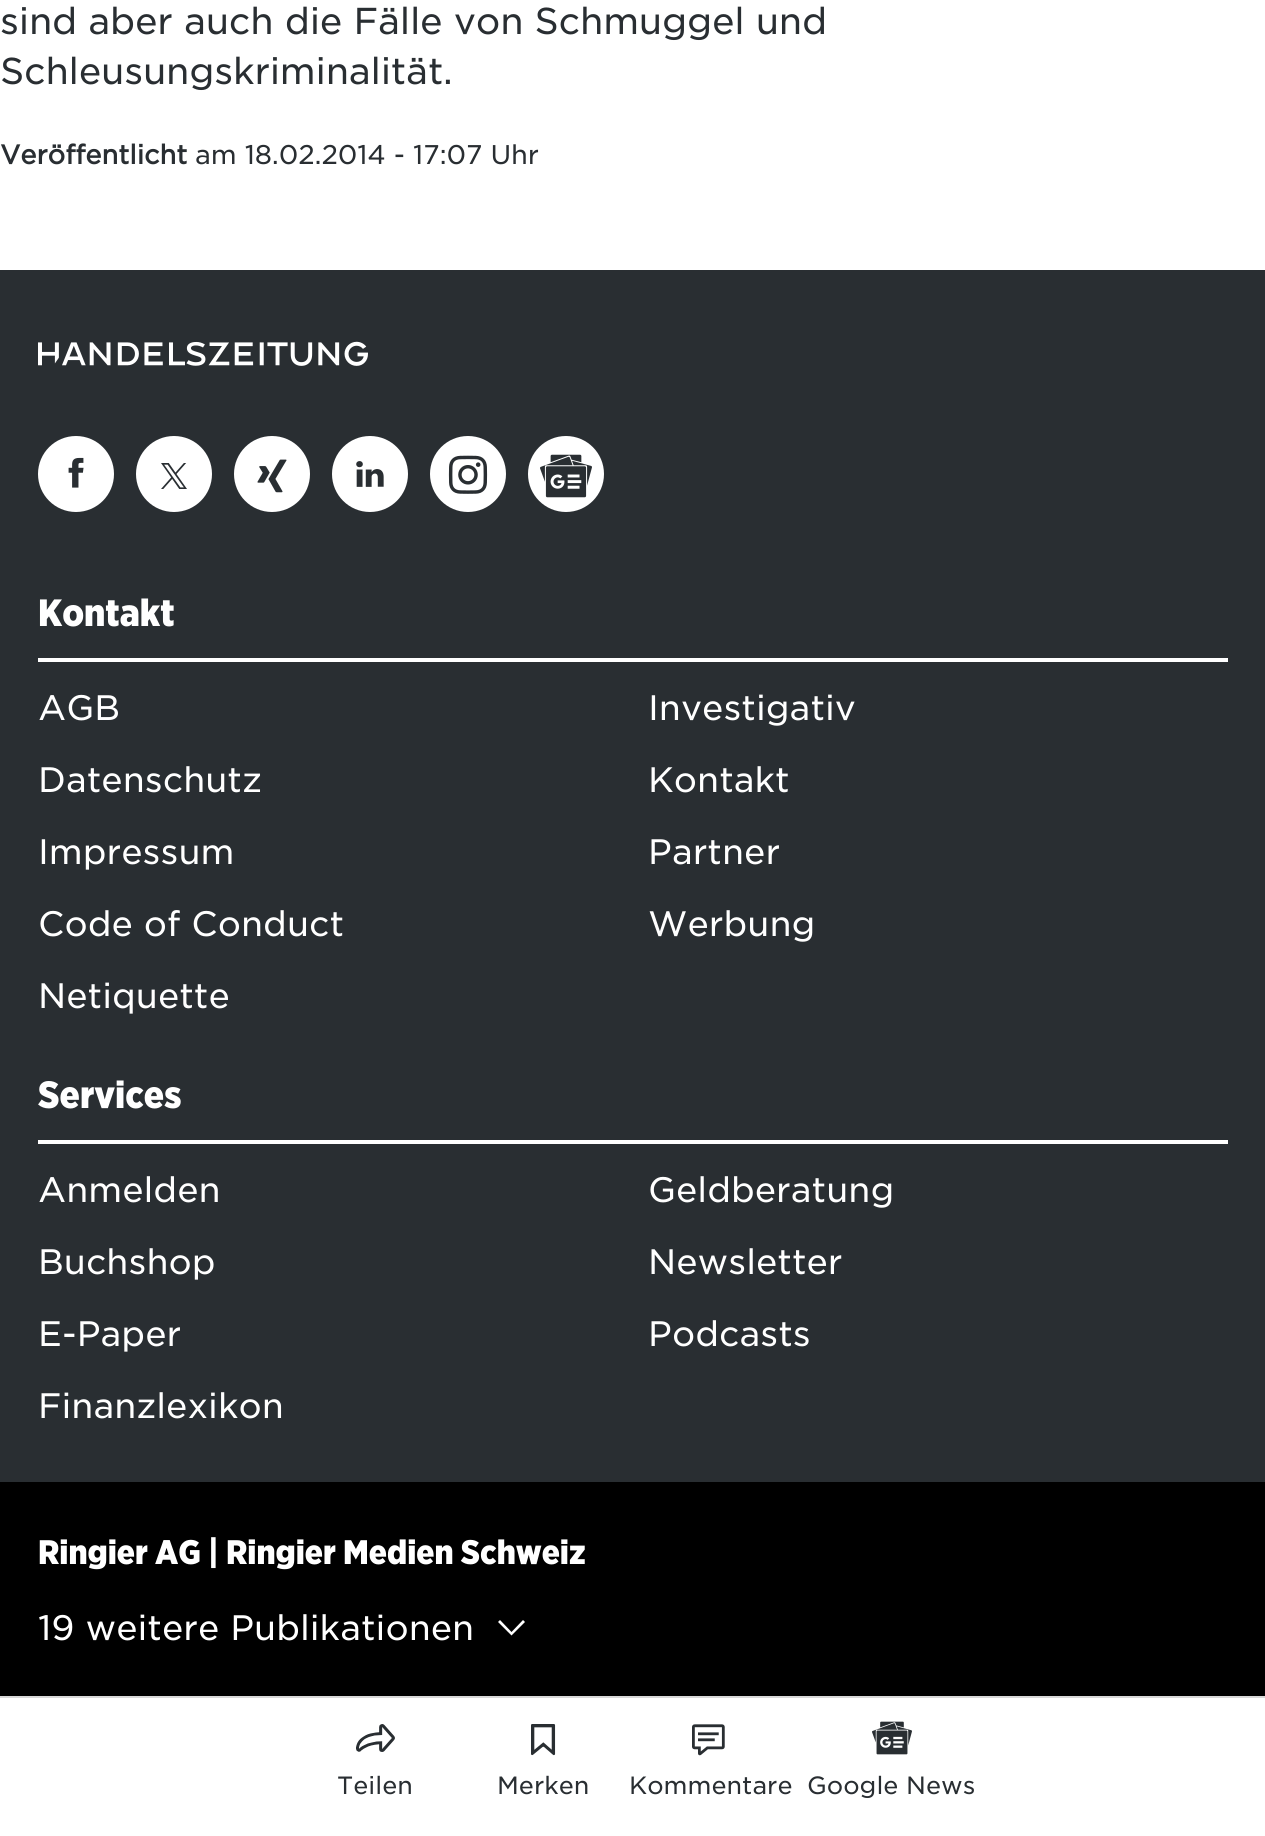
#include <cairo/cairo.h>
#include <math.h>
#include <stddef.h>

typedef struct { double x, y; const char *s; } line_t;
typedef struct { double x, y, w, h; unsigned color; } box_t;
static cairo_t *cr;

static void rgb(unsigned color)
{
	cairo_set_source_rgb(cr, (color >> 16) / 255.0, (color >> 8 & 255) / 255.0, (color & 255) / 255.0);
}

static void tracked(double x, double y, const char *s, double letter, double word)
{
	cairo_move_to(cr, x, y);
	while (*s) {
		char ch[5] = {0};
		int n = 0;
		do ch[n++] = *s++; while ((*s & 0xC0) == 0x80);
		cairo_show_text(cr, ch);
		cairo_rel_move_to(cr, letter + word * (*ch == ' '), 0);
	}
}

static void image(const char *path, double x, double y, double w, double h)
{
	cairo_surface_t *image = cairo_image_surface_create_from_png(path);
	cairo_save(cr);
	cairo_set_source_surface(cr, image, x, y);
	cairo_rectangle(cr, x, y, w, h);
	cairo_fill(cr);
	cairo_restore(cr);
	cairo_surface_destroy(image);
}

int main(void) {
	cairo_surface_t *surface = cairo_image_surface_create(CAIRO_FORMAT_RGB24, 1265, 1836);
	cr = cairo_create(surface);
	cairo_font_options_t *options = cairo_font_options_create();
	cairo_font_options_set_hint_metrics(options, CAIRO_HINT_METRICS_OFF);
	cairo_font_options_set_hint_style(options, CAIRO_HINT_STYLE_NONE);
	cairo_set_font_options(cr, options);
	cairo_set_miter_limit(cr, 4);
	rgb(0xffffff);
	cairo_paint(cr);
	rgb(0xd8d8d8);
	cairo_rectangle(cr, 0, 1696, 1265, 2);
	cairo_fill(cr);
	image("img/1.png", 356, 1724, 39, 28);
	image("img/2.png", 531, 1724, 25, 32);
	image("img/3.png", 692, 1724, 33, 32);
	image("img/4.png", 872, 1721, 40, 34);
	rgb(0x292e32);
	cairo_rectangle(cr, 0, 270, 1265, 1212);
	cairo_fill(cr);
	image("img/5.png", 38, 341, 330, 25);
	rgb(0xffffff);
	cairo_arc(cr, 76, 474, 38, 0, 2 * M_PI);
	cairo_fill(cr);
	image("img/6.png", 68, 457, 16, 31);
	cairo_arc(cr, 174, 474, 38, 0, 2 * M_PI);
	cairo_fill(cr);
	image("img/7.png", 161, 463, 26, 26);
	cairo_arc(cr, 272, 474, 38, 0, 2 * M_PI);
	cairo_fill(cr);
	image("img/8.png", 257, 459, 30, 34);
	cairo_arc(cr, 370, 474, 38, 0, 2 * M_PI);
	cairo_fill(cr);
	image("img/9.png", 356, 461, 28, 26);
	cairo_arc(cr, 468, 474, 38, 0, 2 * M_PI);
	cairo_fill(cr);
	image("img/10.png", 448, 455, 40, 39);
	cairo_arc(cr, 566, 474, 38, 0, 2 * M_PI);
	cairo_fill(cr);
	image("img/11.png", 540, 454, 52, 44);
	{
		static const box_t items[] = {
			{38, 658, 1190, 4, 0xffffff},
			{38, 1140, 1190, 4, 0xffffff},
			{0, 1482, 1265, 214, 0x000000},
		};
		for (size_t i = 0; i < sizeof items / sizeof *items; i++) {
			rgb(items[i].color);
			cairo_rectangle(cr, items[i].x, items[i].y, items[i].w, items[i].h);
			cairo_fill(cr);
		}
	}
	rgb(0xffffff);
	cairo_new_path(cr);
	cairo_move_to(cr, 498, 1622);
	cairo_line_to(cr, 511.5, 1635.5);
	cairo_line_to(cr, 525, 1622);
	cairo_line_to(cr, 523, 1620);
	cairo_line_to(cr, 511.5, 1632);
	cairo_line_to(cr, 500, 1620);
	cairo_close_path(cr);
	cairo_fill(cr);
	cairo_select_font_face(cr, "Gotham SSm", CAIRO_FONT_SLANT_NORMAL, CAIRO_FONT_WEIGHT_NORMAL);
	cairo_set_font_size(cr, 36);
	rgb(0x292e32);
	tracked(0, 34, "sind aber auch die Fälle von Schmuggel und", -0.25, 0);
	tracked(0, 84, "Schleusungskriminalität.", -0.25, 0);
	cairo_select_font_face(cr, "Gotham SSm", CAIRO_FONT_SLANT_NORMAL, CAIRO_FONT_WEIGHT_BOLD);
	cairo_set_font_size(cr, 26);
	tracked(0, 164, "Veröffentlicht", -0.15, 0);
	cairo_select_font_face(cr, "Gotham SSm", CAIRO_FONT_SLANT_NORMAL, CAIRO_FONT_WEIGHT_NORMAL);
	tracked(195, 164, "am 18.02.2014 - 17:07 Uhr", -0.15, 0);
	cairo_set_font_size(cr, 24);
	{
		static const line_t items[] = {
			{337, 1794, "Teilen"},
			{497, 1794, "Merken"},
			{629, 1794, "Kommentare"},
			{807, 1794, "Google News"},
		};
		for (size_t i = 0; i < sizeof items / sizeof *items; i++) {
			cairo_move_to(cr, items[i].x, items[i].y);
			cairo_show_text(cr, items[i].s);
		}
	}
	cairo_select_font_face(cr, "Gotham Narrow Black", CAIRO_FONT_SLANT_NORMAL, CAIRO_FONT_WEIGHT_NORMAL);
	cairo_set_font_size(cr, 38);
	rgb(0xffffff);
	cairo_move_to(cr, 38, 626);
	cairo_show_text(cr, "Kontakt");
	cairo_select_font_face(cr, "Gotham SSm", CAIRO_FONT_SLANT_NORMAL, CAIRO_FONT_WEIGHT_NORMAL);
	cairo_set_font_size(cr, 34);
	{
		static const line_t items[] = {
			{38, 720, "AGB"},
			{648, 720, "Investigativ"},
			{38, 792, "Datenschutz"},
			{648, 792, "Kontakt"},
			{38, 864, "Impressum"},
			{648, 864, "Partner"},
			{38, 936, "Code of Conduct"},
			{648, 936, "Werbung"},
			{38, 1008, "Netiquette"},
		};
		for (size_t i = 0; i < sizeof items / sizeof *items; i++) {
			cairo_move_to(cr, items[i].x, items[i].y);
			cairo_show_text(cr, items[i].s);
		}
	}
	cairo_select_font_face(cr, "Gotham Narrow Black", CAIRO_FONT_SLANT_NORMAL, CAIRO_FONT_WEIGHT_NORMAL);
	cairo_set_font_size(cr, 38);
	cairo_move_to(cr, 38, 1108);
	cairo_show_text(cr, "Services");
	cairo_select_font_face(cr, "Gotham SSm", CAIRO_FONT_SLANT_NORMAL, CAIRO_FONT_WEIGHT_NORMAL);
	cairo_set_font_size(cr, 34);
	{
		static const line_t items[] = {
			{38, 1202, "Anmelden"},
			{648, 1202, "Geldberatung"},
			{38, 1274, "Buchshop"},
			{648, 1274, "Newsletter"},
			{38, 1346, "E-Paper"},
			{648, 1346, "Podcasts"},
			{38, 1418, "Finanzlexikon"},
		};
		for (size_t i = 0; i < sizeof items / sizeof *items; i++) {
			cairo_move_to(cr, items[i].x, items[i].y);
			cairo_show_text(cr, items[i].s);
		}
	}
	cairo_select_font_face(cr, "Gotham Narrow Black", CAIRO_FONT_SLANT_NORMAL, CAIRO_FONT_WEIGHT_NORMAL);
	cairo_move_to(cr, 38, 1564);
	cairo_show_text(cr, "Ringier AG | Ringier Medien Schweiz");
	cairo_select_font_face(cr, "Gotham SSm", CAIRO_FONT_SLANT_NORMAL, CAIRO_FONT_WEIGHT_NORMAL);
	cairo_move_to(cr, 38, 1640);
	cairo_show_text(cr, "19 weitere Publikationen");
	cairo_surface_write_to_png(surface, "page.png");
	cairo_font_options_destroy(options);
	cairo_destroy(cr);
	cairo_surface_destroy(surface);
	return 0;
}
